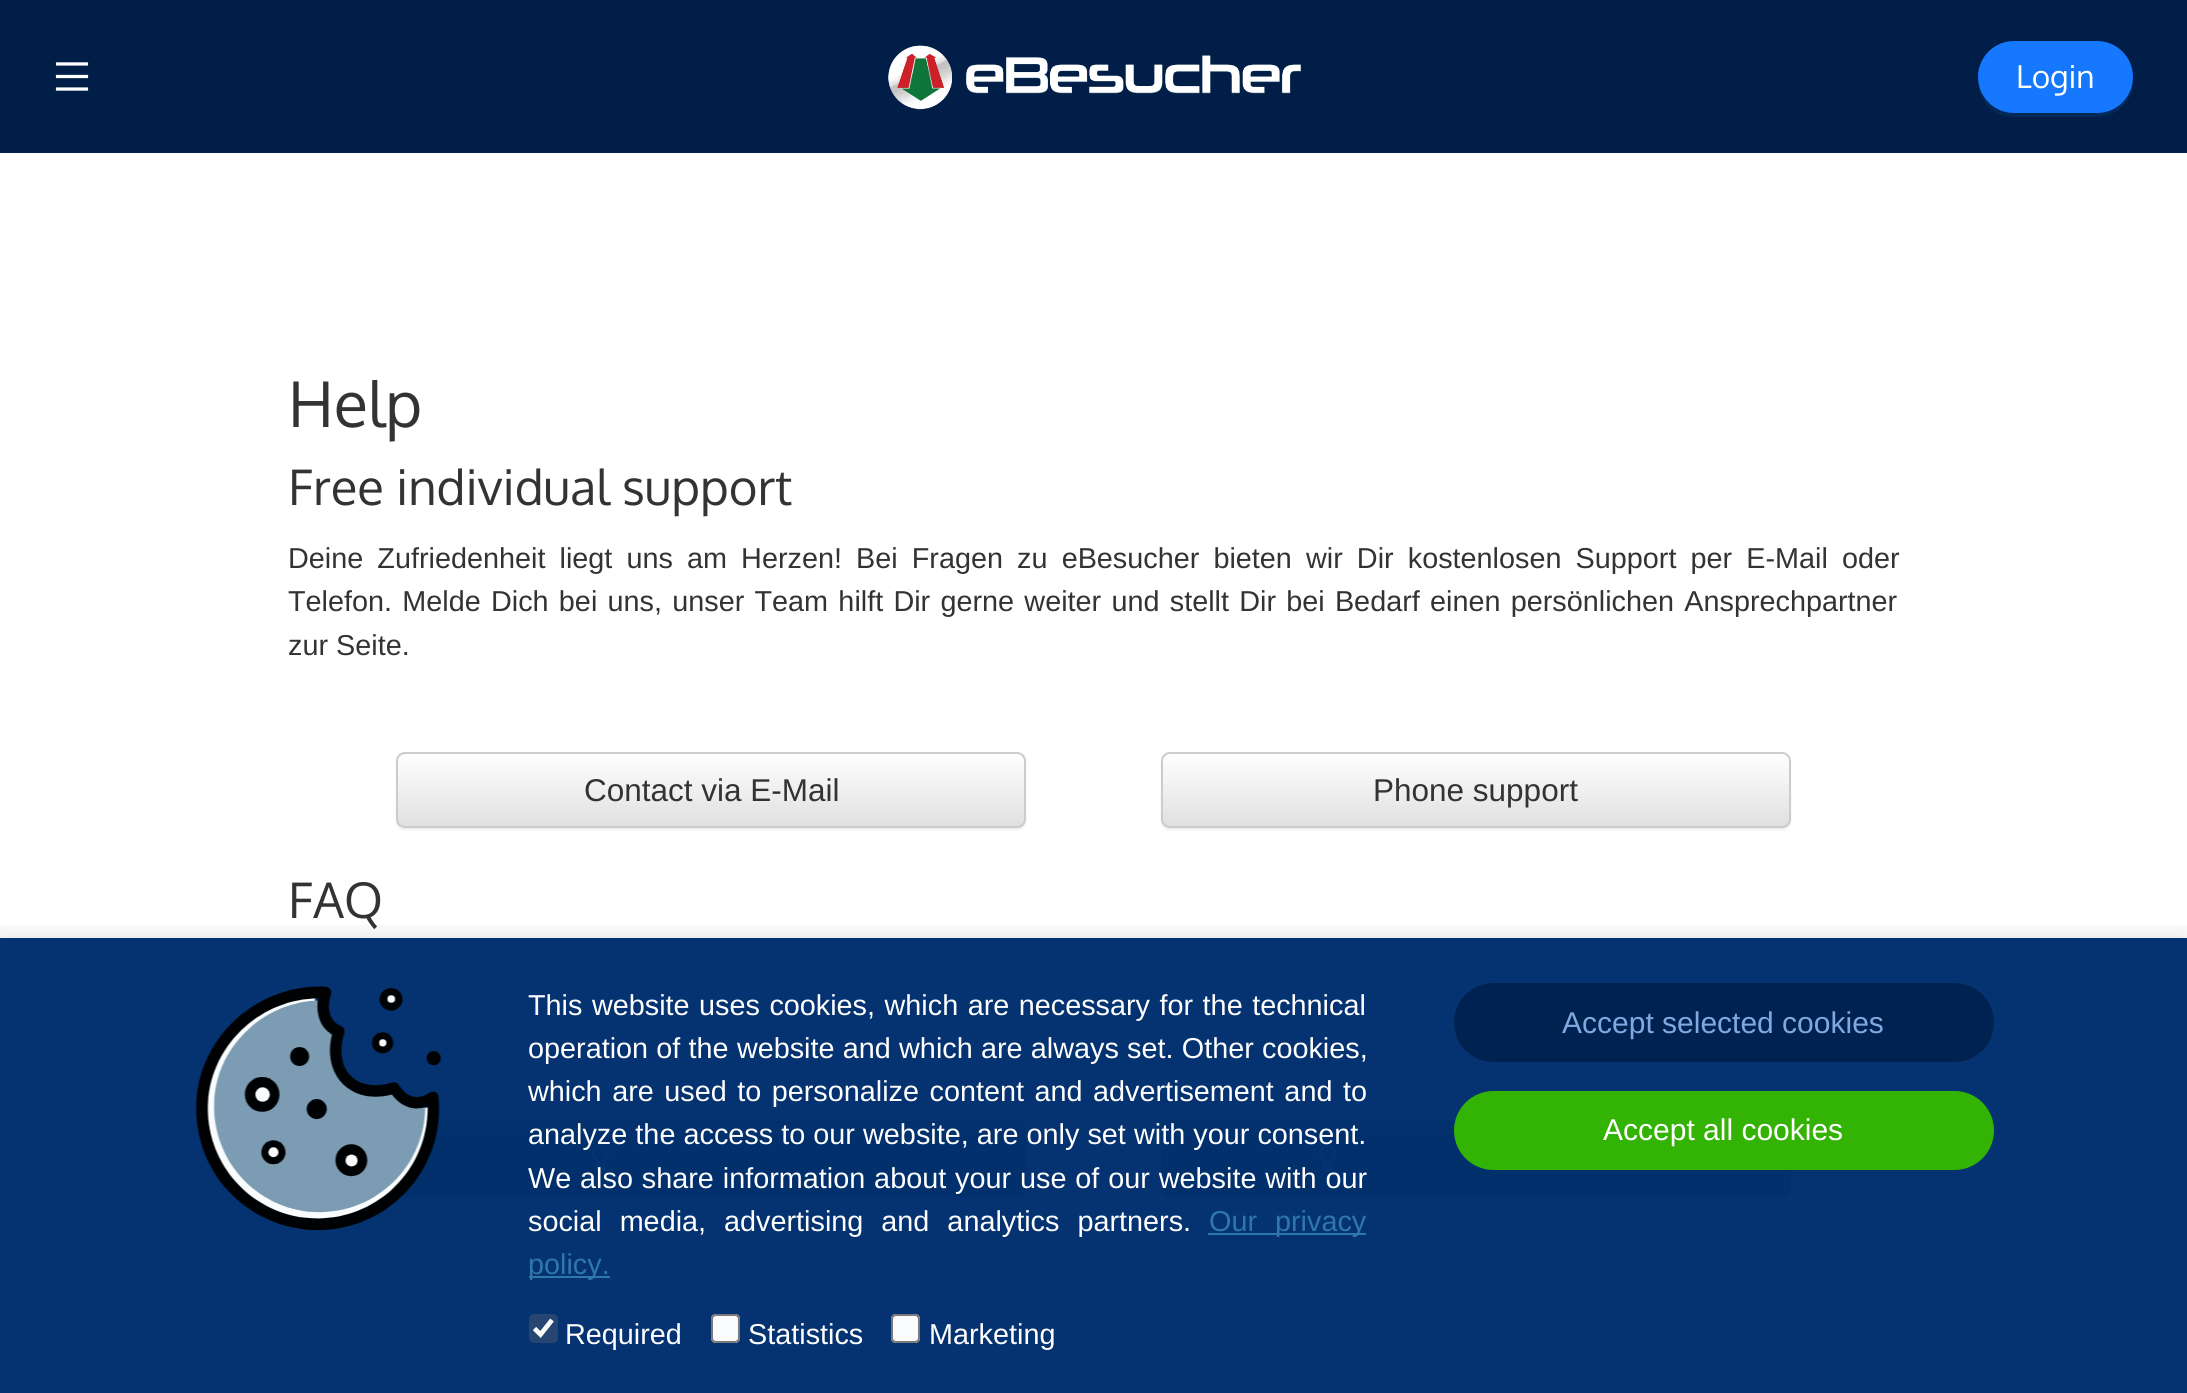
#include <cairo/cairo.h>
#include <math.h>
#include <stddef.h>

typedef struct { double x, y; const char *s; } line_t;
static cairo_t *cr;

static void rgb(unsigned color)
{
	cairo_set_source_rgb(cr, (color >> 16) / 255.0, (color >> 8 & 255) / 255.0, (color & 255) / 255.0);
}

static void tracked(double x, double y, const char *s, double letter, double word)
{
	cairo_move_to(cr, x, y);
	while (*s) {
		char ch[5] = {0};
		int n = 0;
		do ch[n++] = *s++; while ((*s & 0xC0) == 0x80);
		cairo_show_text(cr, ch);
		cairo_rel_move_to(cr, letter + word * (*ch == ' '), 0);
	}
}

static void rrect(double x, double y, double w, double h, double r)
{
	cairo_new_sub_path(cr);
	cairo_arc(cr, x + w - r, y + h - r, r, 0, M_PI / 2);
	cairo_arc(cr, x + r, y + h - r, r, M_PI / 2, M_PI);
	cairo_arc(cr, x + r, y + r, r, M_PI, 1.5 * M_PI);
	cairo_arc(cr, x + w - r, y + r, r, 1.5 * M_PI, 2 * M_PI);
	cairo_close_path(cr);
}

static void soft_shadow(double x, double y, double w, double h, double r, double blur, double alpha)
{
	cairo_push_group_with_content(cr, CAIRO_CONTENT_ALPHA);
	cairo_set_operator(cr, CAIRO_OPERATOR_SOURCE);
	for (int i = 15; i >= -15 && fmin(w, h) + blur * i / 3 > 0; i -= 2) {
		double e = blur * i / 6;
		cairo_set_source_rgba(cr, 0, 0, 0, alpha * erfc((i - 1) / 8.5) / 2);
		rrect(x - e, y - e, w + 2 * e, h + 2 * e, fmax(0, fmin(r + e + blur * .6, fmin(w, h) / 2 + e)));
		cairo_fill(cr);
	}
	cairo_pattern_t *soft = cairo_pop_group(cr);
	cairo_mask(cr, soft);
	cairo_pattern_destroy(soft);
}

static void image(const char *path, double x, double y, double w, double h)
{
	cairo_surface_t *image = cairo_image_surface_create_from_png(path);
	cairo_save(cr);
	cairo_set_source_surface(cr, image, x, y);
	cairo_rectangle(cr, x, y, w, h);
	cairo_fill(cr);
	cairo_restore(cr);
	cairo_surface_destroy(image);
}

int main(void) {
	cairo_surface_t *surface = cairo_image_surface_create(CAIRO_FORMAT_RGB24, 2187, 1393);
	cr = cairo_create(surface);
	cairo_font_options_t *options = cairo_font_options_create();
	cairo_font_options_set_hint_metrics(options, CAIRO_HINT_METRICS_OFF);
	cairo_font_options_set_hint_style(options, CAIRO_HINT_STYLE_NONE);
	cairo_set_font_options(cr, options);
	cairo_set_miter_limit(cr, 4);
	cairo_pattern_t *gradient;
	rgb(0xffffff);
	cairo_paint(cr);
	rgb(0x001e47);
	cairo_rectangle(cr, 0, 0, 2187, 153);
	cairo_fill(cr);
	image("img/1.png", 55, 62, 34, 29);
	image("img/2.png", 888, 45, 413, 65);
	rgb(0x012a59);
	cairo_new_path(cr);
	cairo_move_to(cr, 1978, 81);
	cairo_curve_to(cr, 1978, 101, 1994, 117, 2014, 117);
	cairo_line_to(cr, 2097, 117);
	cairo_curve_to(cr, 2117, 117, 2133, 101, 2133, 81);
	cairo_line_to(cr, 2133, 79);
	cairo_curve_to(cr, 2132, 98, 2116, 112, 2097, 112);
	cairo_line_to(cr, 2014, 112);
	cairo_curve_to(cr, 1995, 112, 1980, 99, 1978, 81);
	cairo_close_path(cr);
	cairo_fill(cr);
	rgb(0x1677ff);
	rrect(1978, 41, 155, 72, 36);
	cairo_fill(cr);
	rgb(0x000000);
	soft_shadow(396, 754, 630, 76, 9, 1, 0.07);
	cairo_save(cr);
	rrect(396, 752, 630, 76, 9);
	cairo_clip(cr);
	gradient = cairo_pattern_create_linear(711, 754, 711, 826);
	cairo_pattern_add_color_stop_rgba(gradient, 0, 1, 1, 1, 1);
	cairo_pattern_add_color_stop_rgba(gradient, 1, 0.878, 0.878, 0.878, 1);
	cairo_set_source(cr, gradient);
	cairo_pattern_destroy(gradient);
	cairo_rectangle(cr, 396, 754, 630, 72);
	cairo_fill(cr);
	cairo_restore(cr);
	rrect(397, 753, 628, 74, 8);
	rgb(0xcccccc);
	cairo_stroke(cr);
	rgb(0x000000);
	soft_shadow(1161, 754, 630, 76, 9, 1, 0.07);
	cairo_save(cr);
	rrect(1161, 752, 630, 76, 9);
	cairo_clip(cr);
	gradient = cairo_pattern_create_linear(1476, 754, 1476, 826);
	cairo_pattern_add_color_stop_rgba(gradient, 0, 1, 1, 1, 1);
	cairo_pattern_add_color_stop_rgba(gradient, 1, 0.878, 0.878, 0.878, 1);
	cairo_set_source(cr, gradient);
	cairo_pattern_destroy(gradient);
	cairo_rectangle(cr, 1161, 754, 630, 72);
	cairo_fill(cr);
	cairo_restore(cr);
	rrect(1162, 753, 628, 74, 8);
	rgb(0xcccccc);
	cairo_stroke(cr);
	rgb(0x000000);
	soft_shadow(396, 1123, 630, 76, 9, 1, 0.07);
	cairo_save(cr);
	rrect(396, 1121, 630, 76, 9);
	cairo_clip(cr);
	gradient = cairo_pattern_create_linear(711, 1123, 711, 1195);
	cairo_pattern_add_color_stop_rgba(gradient, 0, 0.361, 0.722, 0.361, 1);
	cairo_pattern_add_color_stop_rgba(gradient, 1, 0.255, 0.588, 0.255, 1);
	cairo_set_source(cr, gradient);
	cairo_pattern_destroy(gradient);
	cairo_rectangle(cr, 396, 1123, 630, 72);
	cairo_fill(cr);
	cairo_restore(cr);
	rgb(0x74c274);
	cairo_new_path(cr);
	cairo_move_to(cr, 405, 1125);
	cairo_line_to(cr, 1017, 1125);
	cairo_curve_to(cr, 1021, 1125, 1024, 1128, 1024, 1132);
	cairo_curve_to(cr, 1024, 1128, 1022, 1123, 1017, 1123);
	cairo_line_to(cr, 405, 1123);
	cairo_curve_to(cr, 400, 1123, 398, 1128, 398, 1132);
	cairo_curve_to(cr, 398, 1128, 401, 1125, 405, 1125);
	cairo_close_path(cr);
	cairo_fill(cr);
	rrect(397, 1122, 628, 74, 8);
	rgb(0x3e8f3e);
	cairo_stroke(cr);
	image("img/3.png", 591, 1145, 19, 28);
	rgb(0x000000);
	soft_shadow(1161, 1123, 630, 76, 9, 1, 0.07);
	cairo_save(cr);
	rrect(1161, 1121, 630, 76, 9);
	cairo_clip(cr);
	gradient = cairo_pattern_create_linear(1476, 1123, 1476, 1195);
	cairo_pattern_add_color_stop_rgba(gradient, 0, 0.361, 0.722, 0.361, 1);
	cairo_pattern_add_color_stop_rgba(gradient, 1, 0.255, 0.588, 0.255, 1);
	cairo_set_source(cr, gradient);
	cairo_pattern_destroy(gradient);
	cairo_rectangle(cr, 1161, 1123, 630, 72);
	cairo_fill(cr);
	cairo_restore(cr);
	rgb(0x74c274);
	cairo_new_path(cr);
	cairo_move_to(cr, 1170, 1125);
	cairo_line_to(cr, 1782, 1125);
	cairo_curve_to(cr, 1786, 1125, 1789, 1128, 1789, 1132);
	cairo_curve_to(cr, 1789, 1128, 1787, 1123, 1782, 1123);
	cairo_line_to(cr, 1170, 1123);
	cairo_curve_to(cr, 1165, 1123, 1163, 1128, 1163, 1132);
	cairo_curve_to(cr, 1163, 1128, 1166, 1125, 1170, 1125);
	cairo_close_path(cr);
	cairo_fill(cr);
	rrect(1162, 1122, 628, 74, 8);
	rgb(0x3e8f3e);
	cairo_stroke(cr);
	image("img/4.png", 1318, 1145, 19, 28);
	cairo_save(cr);
	cairo_rectangle(cr, 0, 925, 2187, 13);
	cairo_clip(cr);
	rgb(0x000000);
	soft_shadow(0, 934, 2187, 457, 0, 11, 0.1);
	cairo_restore(cr);
	cairo_set_source_rgba(cr, 0, 0.18, 0.427, 0.98);
	cairo_rectangle(cr, 0, 938, 2187, 455);
	cairo_fill(cr);
	image("img/5.png", 195, 986, 247, 244);
	rgb(0x2e78a7);
	cairo_rectangle(cr, 1208, 1233, 158, 2);
	cairo_fill(cr);
	cairo_rectangle(cr, 529, 1276, 81, 2);
	cairo_fill(cr);
	cairo_set_source_rgba(cr, 0.463, 0.463, 0.463, 0.29);
	rrect(529, 1314, 29, 29, 5);
	cairo_fill(cr);
	cairo_new_path(cr);
	cairo_move_to(cr, 534.5, 1328.5);
	cairo_line_to(cr, 540.5, 1334.5);
	cairo_line_to(cr, 552, 1320);
	cairo_set_source_rgba(cr, 1, 1, 1, 0.98);
	cairo_set_line_width(cr, 4.7);
	cairo_stroke(cr);
	rrect(711, 1314, 29, 29, 5);
	cairo_fill(cr);
	rrect(712, 1315, 27, 27, 4);
	cairo_set_source_rgba(cr, 0.463, 0.463, 0.463, 0.98);
	cairo_set_line_width(cr, 2);
	cairo_stroke(cr);
	cairo_set_source_rgba(cr, 1, 1, 1, 0.98);
	rrect(891, 1314, 29, 29, 5);
	cairo_fill(cr);
	rrect(892, 1315, 27, 27, 4);
	cairo_set_source_rgba(cr, 0.463, 0.463, 0.463, 0.98);
	cairo_stroke(cr);
	cairo_set_source_rgba(cr, 0, 0.133, 0.318, 0.98);
	rrect(1454, 983, 540, 79, 39.5);
	cairo_fill(cr);
	cairo_set_source_rgba(cr, 0.204, 0.71, 0.008, 0.98);
	rrect(1454, 1091, 540, 79, 39.5);
	cairo_fill(cr);
	cairo_select_font_face(cr, "Oxygen", CAIRO_FONT_SLANT_NORMAL, CAIRO_FONT_WEIGHT_NORMAL);
	cairo_set_font_size(cr, 31.5);
	rgb(0xffffff);
	cairo_move_to(cr, 2016, 88);
	cairo_show_text(cr, "Login");
	cairo_set_font_size(cr, 63);
	rgb(0x333333);
	cairo_move_to(cr, 288, 427);
	cairo_show_text(cr, "Help");
	cairo_set_font_size(cr, 49);
	cairo_move_to(cr, 288, 505);
	cairo_show_text(cr, "Free individual support");
	cairo_select_font_face(cr, "Liberation Sans", CAIRO_FONT_SLANT_NORMAL, CAIRO_FONT_WEIGHT_NORMAL);
	cairo_set_font_size(cr, 28.8);
	tracked(288, 568, "Deine Zufriedenheit liegt uns am Herzen! Bei Fragen zu eBesucher bieten wir Dir kostenlosen Support per E-Mail oder", 0, 6.1);
	tracked(288, 611, "Telefon. Melde Dich bei uns, unser Team hilft Dir gerne weiter und stellt Dir bei Bedarf einen persönlichen Ansprechpartner", 0, 2.25);
	cairo_move_to(cr, 288, 655);
	cairo_show_text(cr, "zur Seite.");
	cairo_set_font_size(cr, 31.5);
	cairo_move_to(cr, 584, 801);
	cairo_show_text(cr, "Contact via E-Mail");
	cairo_move_to(cr, 1373, 801);
	cairo_show_text(cr, "Phone support");
	cairo_select_font_face(cr, "Oxygen", CAIRO_FONT_SLANT_NORMAL, CAIRO_FONT_WEIGHT_NORMAL);
	cairo_set_font_size(cr, 49);
	cairo_move_to(cr, 288, 918);
	cairo_show_text(cr, "FAQ");
	cairo_select_font_face(cr, "Liberation Sans", CAIRO_FONT_SLANT_NORMAL, CAIRO_FONT_WEIGHT_NORMAL);
	cairo_set_font_size(cr, 28.8);
	rgb(0xffffff);
	tracked(528, 1015, "This website uses cookies, which are necessary for the technical", 0, 1.5);
	tracked(528, 1058, "operation of the website and which are always set. Other cookies,", 0, 0.25);
	tracked(528, 1101, "which are used to personalize content and advertisement and to", 0, 2.5);
	tracked(528, 1144, "analyze the access to our website, are only set with your consent.", 0, 0.1);
	tracked(528, 1188, "We also share information about your use of our website with our", 0, 0.9);
	tracked(528, 1231, "social media, advertising and analytics partners.", 0, 10);
	rgb(0x2e78a7);
	tracked(1209, 1231, "Our privacy", 0, 10);
	cairo_move_to(cr, 528, 1274);
	cairo_show_text(cr, "policy.");
	rgb(0xffffff);
	{
		static const line_t items[] = {
			{565, 1344, "Required"},
			{748, 1344, "Statistics"},
			{929, 1344, "Marketing"},
		};
		for (size_t i = 0; i < sizeof items / sizeof *items; i++) {
			cairo_move_to(cr, items[i].x, items[i].y);
			cairo_show_text(cr, items[i].s);
		}
	}
	cairo_set_font_size(cr, 30);
	rgb(0x81a9e0);
	cairo_move_to(cr, 1562, 1033);
	cairo_show_text(cr, "Accept selected cookies");
	rgb(0xffffff);
	cairo_move_to(cr, 1603, 1140);
	cairo_show_text(cr, "Accept all cookies");
	cairo_surface_write_to_png(surface, "page.png");
	cairo_font_options_destroy(options);
	cairo_destroy(cr);
	cairo_surface_destroy(surface);
	return 0;
}
